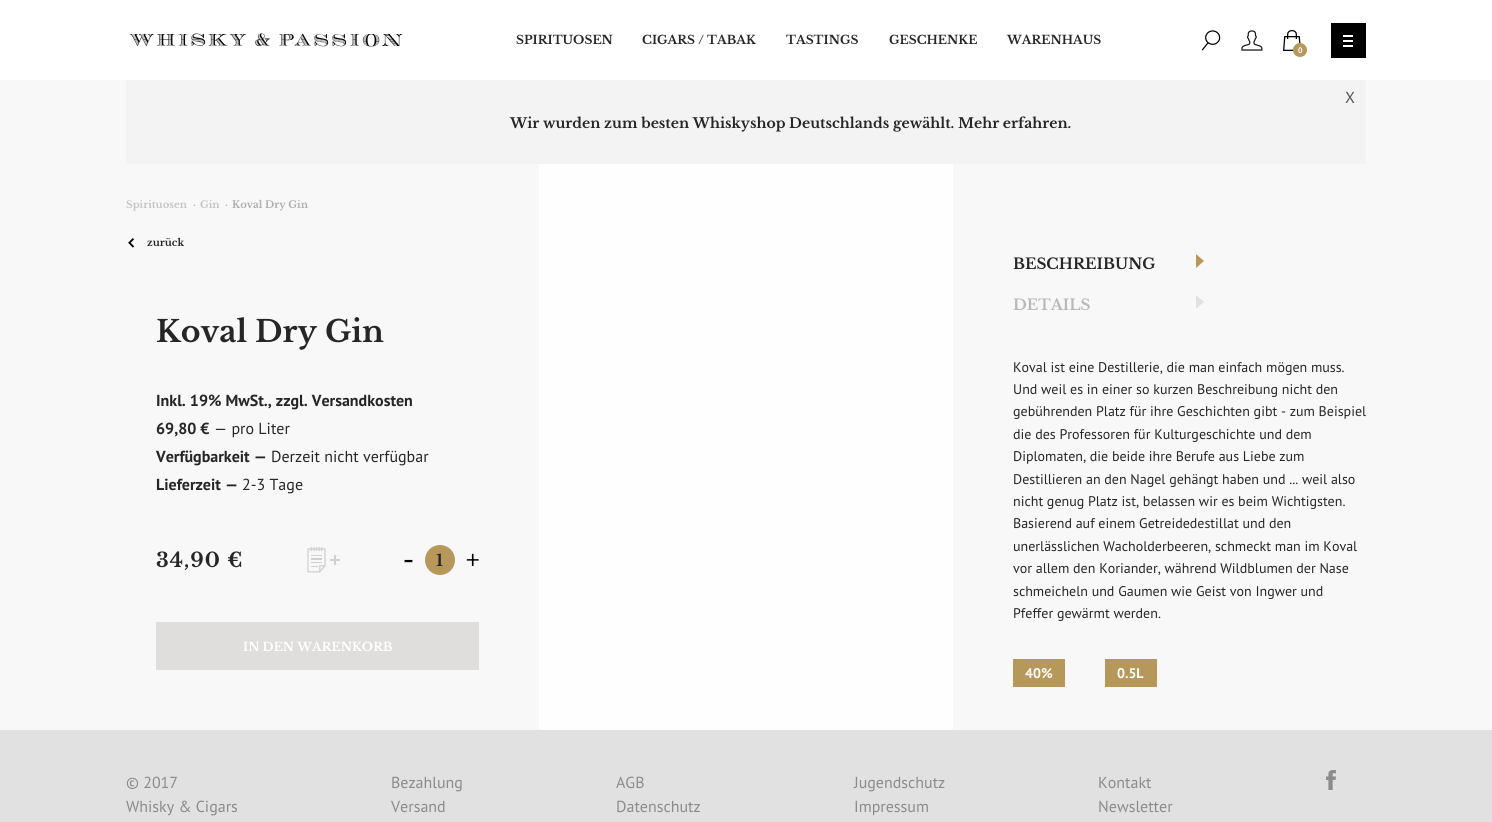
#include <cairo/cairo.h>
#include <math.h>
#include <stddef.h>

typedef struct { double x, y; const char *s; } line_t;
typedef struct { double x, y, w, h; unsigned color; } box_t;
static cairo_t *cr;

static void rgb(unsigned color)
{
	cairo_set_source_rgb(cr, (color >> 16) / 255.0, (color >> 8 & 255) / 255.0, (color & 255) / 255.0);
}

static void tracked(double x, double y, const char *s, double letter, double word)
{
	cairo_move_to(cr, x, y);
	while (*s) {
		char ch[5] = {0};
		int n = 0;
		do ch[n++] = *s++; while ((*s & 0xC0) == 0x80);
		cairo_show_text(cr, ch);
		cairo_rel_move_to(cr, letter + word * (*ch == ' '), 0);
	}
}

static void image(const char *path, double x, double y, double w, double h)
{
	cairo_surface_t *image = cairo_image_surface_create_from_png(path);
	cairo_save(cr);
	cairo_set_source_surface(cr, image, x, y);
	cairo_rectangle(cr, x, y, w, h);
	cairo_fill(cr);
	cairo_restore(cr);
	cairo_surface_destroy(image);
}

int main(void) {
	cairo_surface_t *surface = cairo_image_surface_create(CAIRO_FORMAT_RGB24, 1492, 822);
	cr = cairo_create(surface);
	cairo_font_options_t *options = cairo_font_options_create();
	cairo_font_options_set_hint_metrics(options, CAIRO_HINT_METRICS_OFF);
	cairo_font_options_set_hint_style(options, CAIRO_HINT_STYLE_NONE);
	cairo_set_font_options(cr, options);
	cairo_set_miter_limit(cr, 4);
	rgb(0xf8f8f8);
	cairo_paint(cr);
	rgb(0xffffff);
	cairo_rectangle(cr, 0, 0, 1492, 80);
	cairo_fill(cr);
	image("img/1.png", 129, 33, 274, 14);
	image("img/2.png", 1201, 30, 20, 21);
	image("img/3.png", 1241, 30, 22, 21);
	image("img/4.png", 1283, 30, 18, 21);
	rgb(0xb6985a);
	cairo_arc(cr, 1300, 50, 7, 0, 2 * M_PI);
	cairo_fill(cr);
	{
		static const box_t items[] = {
			{1331, 23, 35, 35, 0x000000},
			{1343, 40, 10, 2, 0xffffff},
			{1343, 35, 10, 2, 0xffffff},
			{1343, 45, 10, 2, 0xffffff},
			{126, 80, 1240, 84, 0xf4f3f3},
		};
		for (size_t i = 0; i < sizeof items / sizeof *items; i++) {
			rgb(items[i].color);
			cairo_rectangle(cr, items[i].x, items[i].y, items[i].w, items[i].h);
			cairo_fill(cr);
		}
	}
	image("img/5.png", 128, 238, 7, 10);
	image("img/6.png", 307, 547, 33, 26);
	rgb(0xb6985a);
	cairo_arc(cr, 440, 560, 15, 0, 2 * M_PI);
	cairo_fill(cr);
	rgb(0xdfdedd);
	cairo_rectangle(cr, 156, 622, 323, 48);
	cairo_fill(cr);
	rgb(0xfefefe);
	cairo_rectangle(cr, 539, 164, 414, 566);
	cairo_fill(cr);
	rgb(0xb6985a);
	cairo_new_path(cr);
	cairo_move_to(cr, 1196, 268);
	cairo_line_to(cr, 1196, 254);
	cairo_line_to(cr, 1204, 261);
	cairo_close_path(cr);
	cairo_fill(cr);
	rgb(0xe2e2e1);
	cairo_new_path(cr);
	cairo_move_to(cr, 1196, 309);
	cairo_line_to(cr, 1196, 295);
	cairo_line_to(cr, 1204, 302);
	cairo_close_path(cr);
	cairo_fill(cr);
	{
		static const box_t items[] = {
			{1013, 659, 52, 28, 0xb6985a},
			{1105, 659, 52, 28, 0xb6985a},
			{0, 730, 1492, 92, 0xe2e1e1},
		};
		for (size_t i = 0; i < sizeof items / sizeof *items; i++) {
			rgb(items[i].color);
			cairo_rectangle(cr, items[i].x, items[i].y, items[i].w, items[i].h);
			cairo_fill(cr);
		}
	}
	image("img/7.png", 1326, 770, 10, 20);
	cairo_select_font_face(cr, "Libre Baskerville", CAIRO_FONT_SLANT_NORMAL, CAIRO_FONT_WEIGHT_BOLD);
	cairo_set_font_size(cr, 12);
	rgb(0x262626);
	{
		static const line_t items[] = {
			{516, 44, "SPIRITUOSEN"},
			{642, 44, "CIGARS / TABAK"},
			{786, 44, "TASTINGS"},
			{889, 44, "GESCHENKE"},
			{1007, 44, "WARENHAUS"},
		};
		for (size_t i = 0; i < sizeof items / sizeof *items; i++) {
			cairo_move_to(cr, items[i].x, items[i].y);
			cairo_show_text(cr, items[i].s);
		}
	}
	cairo_select_font_face(cr, "PT Sans", CAIRO_FONT_SLANT_NORMAL, CAIRO_FONT_WEIGHT_BOLD);
	cairo_set_font_size(cr, 8);
	rgb(0xffffff);
	cairo_move_to(cr, 1298, 53);
	cairo_show_text(cr, "0");
	cairo_select_font_face(cr, "PT Sans", CAIRO_FONT_SLANT_NORMAL, CAIRO_FONT_WEIGHT_NORMAL);
	cairo_set_font_size(cr, 16);
	rgb(0x555555);
	cairo_move_to(cr, 1345, 103);
	cairo_show_text(cr, "X");
	cairo_select_font_face(cr, "Libre Baskerville", CAIRO_FONT_SLANT_NORMAL, CAIRO_FONT_WEIGHT_BOLD);
	cairo_set_font_size(cr, 14);
	rgb(0x262626);
	cairo_move_to(cr, 510, 128);
	cairo_show_text(cr, "Wir wurden zum besten Whiskyshop Deutschlands gewählt. Mehr erfahren.");
	cairo_set_font_size(cr, 10);
	rgb(0xc4c4c2);
	cairo_move_to(cr, 126, 208);
	cairo_show_text(cr, "Spirituosen");
	rgb(0xaeadab);
	cairo_move_to(cr, 193, 208);
	cairo_show_text(cr, "·");
	rgb(0xc4c4c2);
	cairo_move_to(cr, 200, 208);
	cairo_show_text(cr, "Gin");
	rgb(0xaeadab);
	cairo_move_to(cr, 225, 208);
	cairo_show_text(cr, "·");
	cairo_move_to(cr, 232, 208);
	cairo_show_text(cr, "Koval Dry Gin");
	rgb(0x262626);
	cairo_move_to(cr, 147, 246);
	cairo_show_text(cr, "zurück");
	cairo_set_font_size(cr, 30);
	cairo_move_to(cr, 156, 342);
	cairo_show_text(cr, "Koval Dry Gin");
	cairo_select_font_face(cr, "PT Sans", CAIRO_FONT_SLANT_NORMAL, CAIRO_FONT_WEIGHT_BOLD);
	cairo_set_font_size(cr, 16);
	cairo_move_to(cr, 156, 406);
	cairo_show_text(cr, "Inkl. 19% MwSt., zzgl. Versandkosten");
	cairo_move_to(cr, 156, 434);
	cairo_show_text(cr, "69,80 €");
	cairo_select_font_face(cr, "PT Sans", CAIRO_FONT_SLANT_NORMAL, CAIRO_FONT_WEIGHT_NORMAL);
	cairo_move_to(cr, 214, 434);
	cairo_show_text(cr, "— pro Liter");
	cairo_select_font_face(cr, "PT Sans", CAIRO_FONT_SLANT_NORMAL, CAIRO_FONT_WEIGHT_BOLD);
	cairo_move_to(cr, 156, 462);
	cairo_show_text(cr, "Verfügbarkeit —");
	cairo_select_font_face(cr, "PT Sans", CAIRO_FONT_SLANT_NORMAL, CAIRO_FONT_WEIGHT_NORMAL);
	cairo_move_to(cr, 271, 462);
	cairo_show_text(cr, "Derzeit nicht verfügbar");
	cairo_select_font_face(cr, "PT Sans", CAIRO_FONT_SLANT_NORMAL, CAIRO_FONT_WEIGHT_BOLD);
	cairo_move_to(cr, 156, 490);
	cairo_show_text(cr, "Lieferzeit —");
	cairo_select_font_face(cr, "PT Sans", CAIRO_FONT_SLANT_NORMAL, CAIRO_FONT_WEIGHT_NORMAL);
	cairo_move_to(cr, 242, 490);
	cairo_show_text(cr, "2-3 Tage");
	cairo_select_font_face(cr, "Libre Baskerville", CAIRO_FONT_SLANT_NORMAL, CAIRO_FONT_WEIGHT_BOLD);
	cairo_set_font_size(cr, 20);
	tracked(156, 567, "34,90 €", 1, 0);
	cairo_set_font_size(cr, 24);
	rgb(0x000000);
	cairo_move_to(cr, 403, 568);
	cairo_show_text(cr, "-");
	cairo_set_font_size(cr, 16);
	rgb(0x262626);
	cairo_move_to(cr, 436, 566);
	cairo_show_text(cr, "1");
	cairo_set_font_size(cr, 24);
	rgb(0x000000);
	cairo_move_to(cr, 466, 568);
	cairo_show_text(cr, "+");
	cairo_set_font_size(cr, 12);
	rgb(0xffffff);
	cairo_move_to(cr, 243, 651);
	cairo_show_text(cr, "IN DEN WARENKORB");
	cairo_set_font_size(cr, 15);
	rgb(0x262626);
	cairo_move_to(cr, 1013, 269);
	cairo_show_text(cr, "BESCHREIBUNG");
	rgb(0xb9b9b9);
	cairo_move_to(cr, 1013, 310);
	cairo_show_text(cr, "DETAILS");
	cairo_select_font_face(cr, "PT Sans", CAIRO_FONT_SLANT_NORMAL, CAIRO_FONT_WEIGHT_NORMAL);
	cairo_set_font_size(cr, 14);
	rgb(0x262626);
	{
		static const line_t items[] = {
			{1013, 372, "Koval ist eine Destillerie, die man einfach mögen muss."},
			{1013, 394, "Und weil es in einer so kurzen Beschreibung nicht den"},
			{1013, 416, "gebührenden Platz für ihre Geschichten gibt - zum Beispiel"},
			{1013, 439, "die des Professoren für Kulturgeschichte und dem"},
			{1013, 461, "Diplomaten, die beide ihre Berufe aus Liebe zum"},
			{1013, 484, "Destillieren an den Nagel gehängt haben und ... weil also"},
			{1013, 506, "nicht genug Platz ist, belassen wir es beim Wichtigsten."},
			{1013, 528, "Basierend auf einem Getreidedestillat und den"},
			{1013, 551, "unerlässlichen Wacholderbeeren, schmeckt man im Koval"},
			{1013, 573, "vor allem den Koriander, während Wildblumen der Nase"},
			{1013, 596, "schmeicheln und Gaumen wie Geist von Ingwer und"},
			{1013, 618, "Pfeffer gewärmt werden."},
		};
		for (size_t i = 0; i < sizeof items / sizeof *items; i++) {
			cairo_move_to(cr, items[i].x, items[i].y);
			cairo_show_text(cr, items[i].s);
		}
	}
	cairo_select_font_face(cr, "PT Sans", CAIRO_FONT_SLANT_NORMAL, CAIRO_FONT_WEIGHT_BOLD);
	rgb(0xffffff);
	cairo_move_to(cr, 1025, 678);
	cairo_show_text(cr, "40%");
	cairo_move_to(cr, 1117, 678);
	cairo_show_text(cr, "0.5L");
	cairo_select_font_face(cr, "PT Sans", CAIRO_FONT_SLANT_NORMAL, CAIRO_FONT_WEIGHT_NORMAL);
	cairo_set_font_size(cr, 16);
	rgb(0x8b8b8b);
	{
		static const line_t items[] = {
			{126, 788, "© 2017"},
			{126, 812, "Whisky & Cigars"},
			{391, 788, "Bezahlung"},
			{391, 812, "Versand"},
			{616, 788, "AGB"},
			{616, 812, "Datenschutz"},
			{854, 788, "Jugendschutz"},
			{854, 812, "Impressum"},
			{1098, 788, "Kontakt"},
			{1098, 812, "Newsletter"},
		};
		for (size_t i = 0; i < sizeof items / sizeof *items; i++) {
			cairo_move_to(cr, items[i].x, items[i].y);
			cairo_show_text(cr, items[i].s);
		}
	}
	cairo_surface_write_to_png(surface, "page.png");
	cairo_font_options_destroy(options);
	cairo_destroy(cr);
	cairo_surface_destroy(surface);
	return 0;
}
